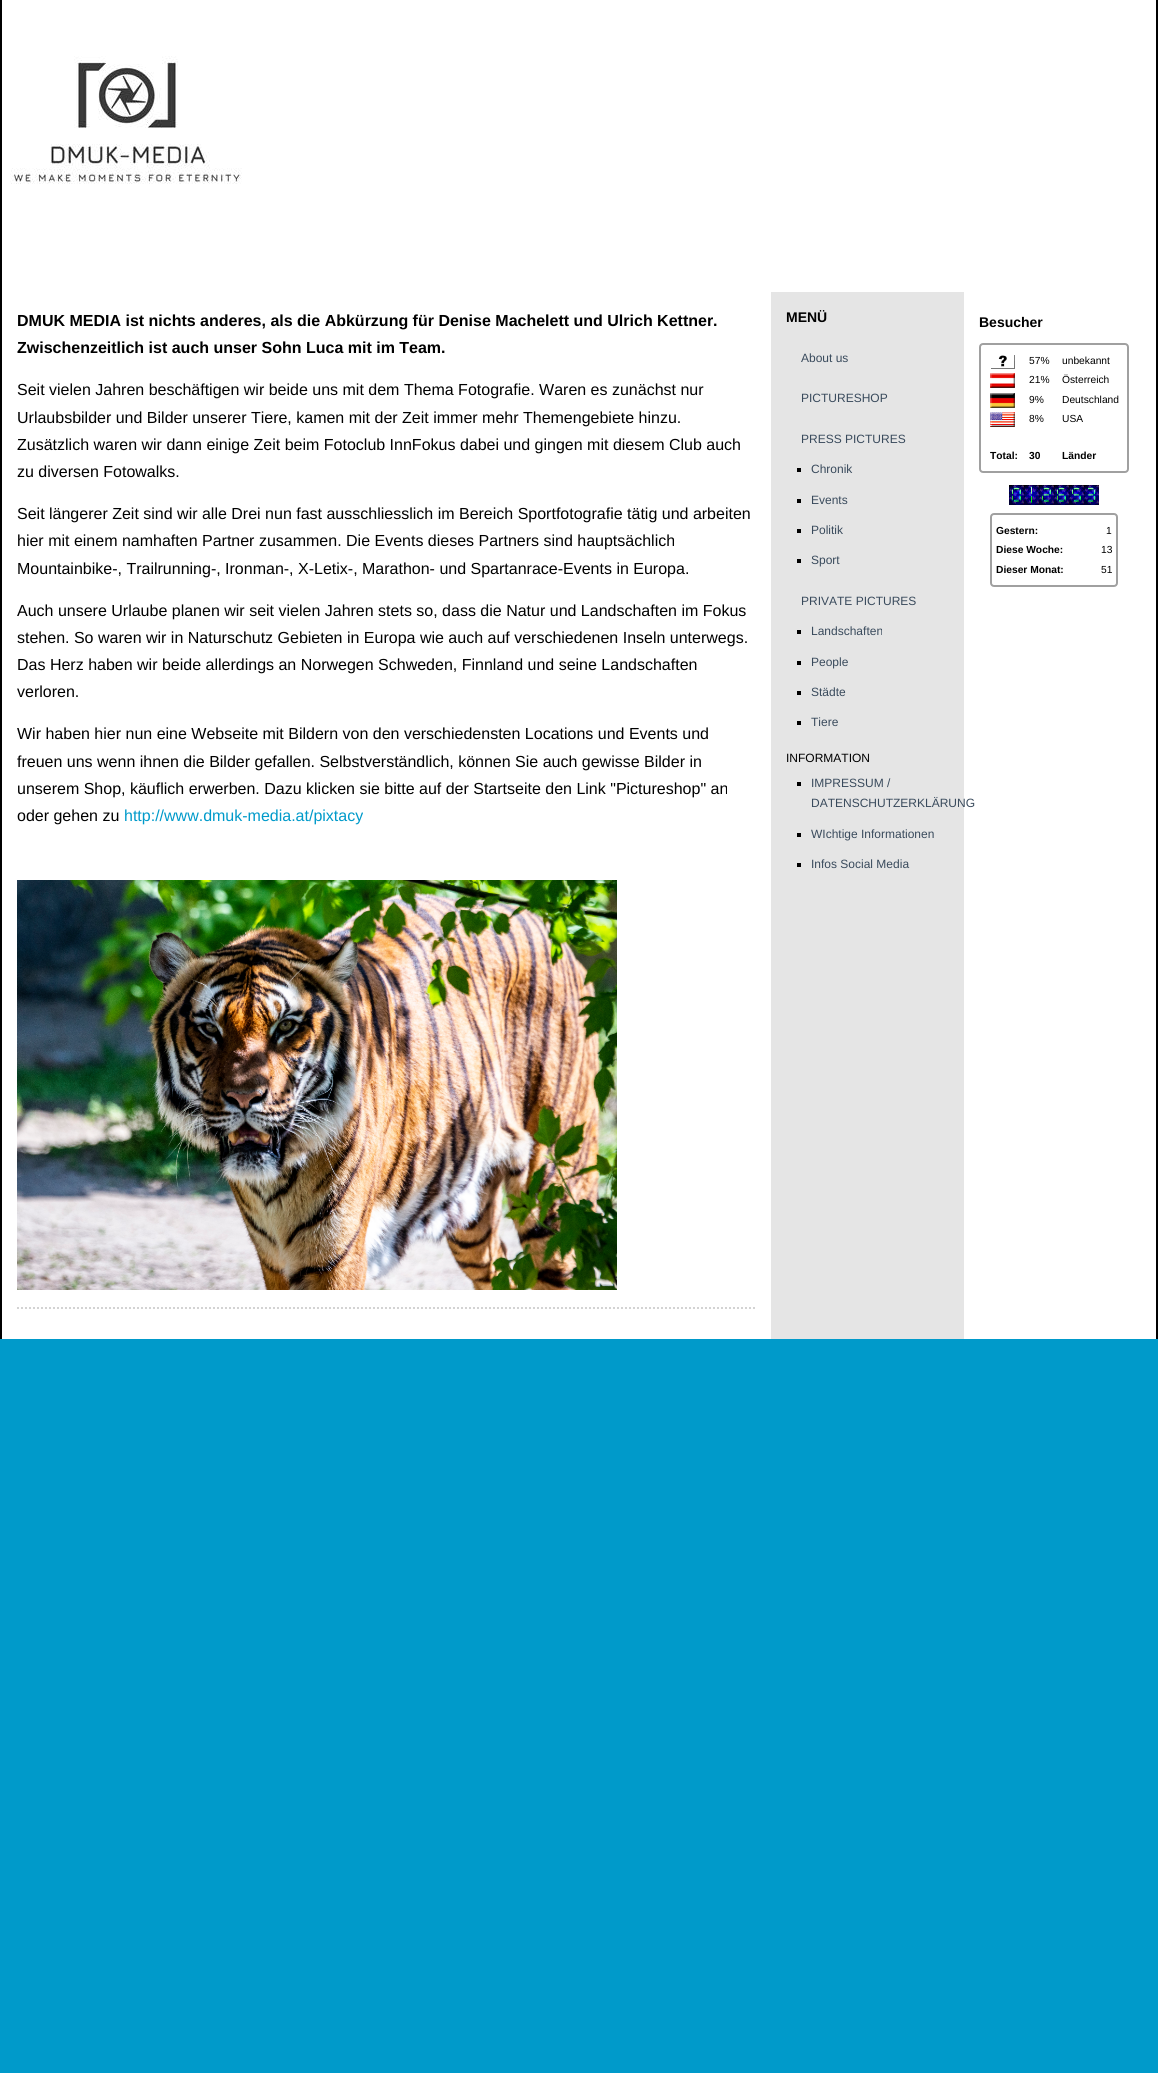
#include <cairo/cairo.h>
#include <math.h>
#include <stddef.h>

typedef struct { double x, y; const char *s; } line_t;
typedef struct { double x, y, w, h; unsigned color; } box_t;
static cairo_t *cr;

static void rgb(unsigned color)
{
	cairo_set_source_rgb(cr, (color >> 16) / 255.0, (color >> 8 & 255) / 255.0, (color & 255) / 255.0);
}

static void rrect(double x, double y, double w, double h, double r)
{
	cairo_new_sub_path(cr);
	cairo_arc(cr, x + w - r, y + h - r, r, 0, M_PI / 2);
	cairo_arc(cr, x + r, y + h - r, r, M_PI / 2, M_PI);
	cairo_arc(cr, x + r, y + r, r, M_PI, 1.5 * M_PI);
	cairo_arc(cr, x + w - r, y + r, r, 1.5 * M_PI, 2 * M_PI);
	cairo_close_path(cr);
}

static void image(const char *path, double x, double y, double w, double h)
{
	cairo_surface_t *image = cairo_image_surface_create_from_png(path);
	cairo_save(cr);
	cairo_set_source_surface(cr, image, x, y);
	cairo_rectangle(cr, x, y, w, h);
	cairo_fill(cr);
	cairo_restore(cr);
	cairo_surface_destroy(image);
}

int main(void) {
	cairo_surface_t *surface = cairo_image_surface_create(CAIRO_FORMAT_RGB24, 1158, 2073);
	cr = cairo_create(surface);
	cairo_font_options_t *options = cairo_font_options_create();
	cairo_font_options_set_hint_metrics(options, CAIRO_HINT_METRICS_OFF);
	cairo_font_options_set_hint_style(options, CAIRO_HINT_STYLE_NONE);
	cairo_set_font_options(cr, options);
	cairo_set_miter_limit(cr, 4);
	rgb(0x009aca);
	cairo_paint(cr);
	{
		static const box_t items[] = {
			{2, 0, 1154, 1339, 0xffffff},
			{1156, 0, 2, 1339, 0x000000},
			{0, 0, 2, 1339, 0x000000},
		};
		for (size_t i = 0; i < sizeof items / sizeof *items; i++) {
			rgb(items[i].color);
			cairo_rectangle(cr, items[i].x, items[i].y, items[i].w, items[i].h);
			cairo_fill(cr);
		}
	}
	image("img/1.png", 10, 56, 232, 128);
	cairo_new_path(cr);
	cairo_move_to(cr, 17, 1308);
	cairo_line_to(cr, 756, 1308);
	rgb(0xd3d3d3);
	cairo_set_dash(cr, (double[]){2, 2}, 2, 0);
	cairo_stroke(cr);
	image("img/2.png", 17, 880, 600, 410);
	{
		static const box_t items[] = {
			{771, 292, 193, 1047, 0xe5e5e5},
			{797, 468, 4, 4, 0x000000},
			{797, 499, 4, 4, 0x000000},
			{797, 529, 4, 4, 0x000000},
			{797, 559, 4, 4, 0x000000},
			{797, 630, 4, 4, 0x000000},
			{797, 661, 4, 4, 0x000000},
			{797, 691, 4, 4, 0x000000},
			{797, 721, 4, 4, 0x000000},
			{797, 782, 4, 4, 0x000000},
			{797, 833, 4, 4, 0x000000},
			{797, 863, 4, 4, 0x000000},
		};
		for (size_t i = 0; i < sizeof items / sizeof *items; i++) {
			rgb(items[i].color);
			cairo_rectangle(cr, items[i].x, items[i].y, items[i].w, items[i].h);
			cairo_fill(cr);
		}
	}
	rrect(980, 344, 148, 128, 3);
	rgb(0xa0a0a0);
	cairo_set_dash(cr, NULL, 0, 0);
	cairo_stroke(cr);
	image("img/3.png", 991, 355, 24, 14);
	image("img/4.png", 990, 373, 25, 15);
	image("img/5.png", 990, 393, 25, 15);
	image("img/6.png", 990, 412, 25, 15);
	image("img/7.png", 1009, 485, 15, 20);
	image("img/8.png", 1024, 485, 15, 20);
	image("img/9.png", 1039, 485, 15, 20);
	image("img/10.png", 1054, 485, 15, 20);
	image("img/11.png", 1069, 485, 15, 20);
	image("img/12.png", 1084, 485, 15, 20);
	rrect(991, 514, 126, 72, 3);
	cairo_stroke(cr);
	cairo_select_font_face(cr, "Liberation Sans", CAIRO_FONT_SLANT_NORMAL, CAIRO_FONT_WEIGHT_BOLD);
	cairo_set_font_size(cr, 16);
	rgb(0x000000);
	cairo_move_to(cr, 17, 326);
	cairo_show_text(cr, "DMUK MEDIA ist nichts anderes, als die Abkürzung für Denise Machelett und Ulrich Kettner.");
	cairo_move_to(cr, 17, 353);
	cairo_show_text(cr, "Zwischenzeitlich ist auch unser Sohn Luca mit im Team.");
	cairo_select_font_face(cr, "Liberation Sans", CAIRO_FONT_SLANT_NORMAL, CAIRO_FONT_WEIGHT_NORMAL);
	{
		static const line_t items[] = {
			{17, 395, "Seit vielen Jahren beschäftigen wir beide uns mit dem Thema Fotografie. Waren es zunächst nur"},
			{17, 423, "Urlaubsbilder und Bilder unserer Tiere, kamen mit der Zeit immer mehr Themengebiete hinzu."},
			{17, 450, "Zusätzlich waren wir dann einige Zeit beim Fotoclub InnFokus dabei und gingen mit diesem Club auch"},
			{17, 477, "zu diversen Fotowalks."},
			{17, 519, "Seit längerer Zeit sind wir alle Drei nun fast ausschliesslich im Bereich Sportfotografie tätig und arbeiten"},
			{17, 546, "hier mit einem namhaften Partner zusammen. Die Events dieses Partners sind hauptsächlich"},
			{17, 574, "Mountainbike-, Trailrunning-, Ironman-, X-Letix-, Marathon- und Spartanrace-Events in Europa."},
			{17, 616, "Auch unsere Urlaube planen wir seit vielen Jahren stets so, dass die Natur und Landschaften im Fokus"},
			{17, 643, "stehen. So waren wir in Naturschutz Gebieten in Europa wie auch auf verschiedenen Inseln unterwegs."},
			{17, 670, "Das Herz haben wir beide allerdings an Norwegen Schweden, Finnland und seine Landschaften"},
			{17, 697, "verloren."},
			{17, 739, "Wir haben hier nun eine Webseite mit Bildern von den verschiedensten Locations und Events und"},
			{17, 767, "freuen uns wenn ihnen die Bilder gefallen. Selbstverständlich, können Sie auch gewisse Bilder in"},
			{17, 794, "unserem Shop, käuflich erwerben. Dazu klicken sie bitte auf der Startseite den Link \"Pictureshop\" an"},
			{17, 821, "oder gehen zu"},
		};
		for (size_t i = 0; i < sizeof items / sizeof *items; i++) {
			cairo_move_to(cr, items[i].x, items[i].y);
			cairo_show_text(cr, items[i].s);
		}
	}
	rgb(0x009aca);
	cairo_move_to(cr, 124, 821);
	cairo_show_text(cr, "http://www.dmuk-media.at/pixtacy");
	cairo_select_font_face(cr, "Liberation Sans", CAIRO_FONT_SLANT_NORMAL, CAIRO_FONT_WEIGHT_BOLD);
	cairo_set_font_size(cr, 14);
	rgb(0x000000);
	cairo_move_to(cr, 786, 322);
	cairo_show_text(cr, "MENÜ");
	cairo_select_font_face(cr, "Liberation Sans", CAIRO_FONT_SLANT_NORMAL, CAIRO_FONT_WEIGHT_NORMAL);
	cairo_set_font_size(cr, 12);
	rgb(0x394a5c);
	{
		static const line_t items[] = {
			{801, 362, "About us"},
			{801, 402, "PICTURESHOP"},
			{801, 443, "PRESS PICTURES"},
			{811, 473, "Chronik"},
			{811, 504, "Events"},
			{811, 534, "Politik"},
			{811, 564, "Sport"},
			{801, 605, "PRIVATE PICTURES"},
			{811, 635, "Landschaften"},
			{811, 666, "People"},
			{811, 696, "Städte"},
			{811, 726, "Tiere"},
		};
		for (size_t i = 0; i < sizeof items / sizeof *items; i++) {
			cairo_move_to(cr, items[i].x, items[i].y);
			cairo_show_text(cr, items[i].s);
		}
	}
	rgb(0x000000);
	cairo_move_to(cr, 786, 762);
	cairo_show_text(cr, "INFORMATION");
	rgb(0x394a5c);
	{
		static const line_t items[] = {
			{811, 787, "IMPRESSUM /"},
			{811, 807, "DATENSCHUTZERKLÄRUNG"},
			{811, 838, "WIchtige Informationen"},
			{811, 868, "Infos Social Media"},
		};
		for (size_t i = 0; i < sizeof items / sizeof *items; i++) {
			cairo_move_to(cr, items[i].x, items[i].y);
			cairo_show_text(cr, items[i].s);
		}
	}
	cairo_select_font_face(cr, "Liberation Sans", CAIRO_FONT_SLANT_NORMAL, CAIRO_FONT_WEIGHT_BOLD);
	cairo_set_font_size(cr, 14);
	rgb(0x000000);
	cairo_move_to(cr, 979, 327);
	cairo_show_text(cr, "Besucher");
	cairo_select_font_face(cr, "Liberation Sans", CAIRO_FONT_SLANT_NORMAL, CAIRO_FONT_WEIGHT_NORMAL);
	cairo_set_font_size(cr, 10.25);
	{
		static const line_t items[] = {
			{1029, 364, "57%"},
			{1062, 364, "unbekannt"},
			{1029, 383, "21%"},
			{1062, 383, "Österreich"},
			{1029, 403, "9%"},
			{1062, 403, "Deutschland"},
			{1029, 422, "8%"},
			{1062, 422, "USA"},
		};
		for (size_t i = 0; i < sizeof items / sizeof *items; i++) {
			cairo_move_to(cr, items[i].x, items[i].y);
			cairo_show_text(cr, items[i].s);
		}
	}
	cairo_select_font_face(cr, "Liberation Sans", CAIRO_FONT_SLANT_NORMAL, CAIRO_FONT_WEIGHT_BOLD);
	{
		static const line_t items[] = {
			{990, 459, "Total:"},
			{1029, 459, "30"},
			{1062, 459, "Länder"},
			{996, 534, "Gestern:"},
		};
		for (size_t i = 0; i < sizeof items / sizeof *items; i++) {
			cairo_move_to(cr, items[i].x, items[i].y);
			cairo_show_text(cr, items[i].s);
		}
	}
	cairo_select_font_face(cr, "Liberation Sans", CAIRO_FONT_SLANT_NORMAL, CAIRO_FONT_WEIGHT_NORMAL);
	cairo_move_to(cr, 1106, 534);
	cairo_show_text(cr, "1");
	cairo_select_font_face(cr, "Liberation Sans", CAIRO_FONT_SLANT_NORMAL, CAIRO_FONT_WEIGHT_BOLD);
	cairo_move_to(cr, 996, 553);
	cairo_show_text(cr, "Diese Woche:");
	cairo_select_font_face(cr, "Liberation Sans", CAIRO_FONT_SLANT_NORMAL, CAIRO_FONT_WEIGHT_NORMAL);
	cairo_move_to(cr, 1101, 553);
	cairo_show_text(cr, "13");
	cairo_select_font_face(cr, "Liberation Sans", CAIRO_FONT_SLANT_NORMAL, CAIRO_FONT_WEIGHT_BOLD);
	cairo_move_to(cr, 996, 573);
	cairo_show_text(cr, "Dieser Monat:");
	cairo_select_font_face(cr, "Liberation Sans", CAIRO_FONT_SLANT_NORMAL, CAIRO_FONT_WEIGHT_NORMAL);
	cairo_move_to(cr, 1101, 573);
	cairo_show_text(cr, "51");
	cairo_surface_write_to_png(surface, "page.png");
	cairo_font_options_destroy(options);
	cairo_destroy(cr);
	cairo_surface_destroy(surface);
	return 0;
}
